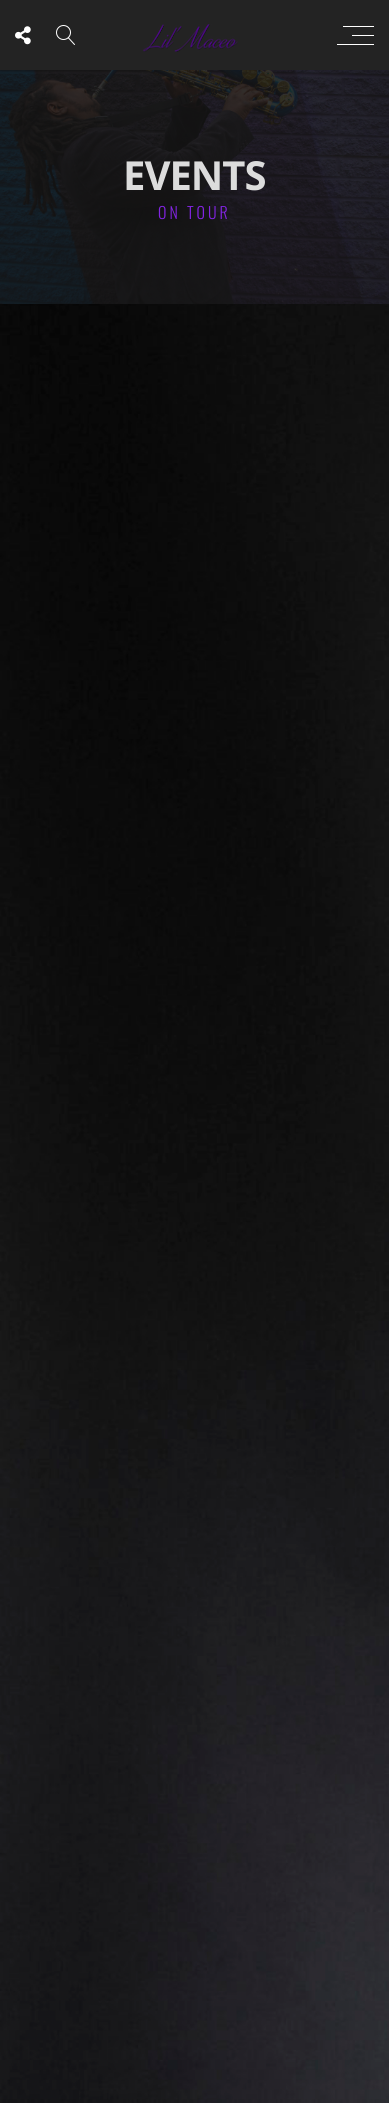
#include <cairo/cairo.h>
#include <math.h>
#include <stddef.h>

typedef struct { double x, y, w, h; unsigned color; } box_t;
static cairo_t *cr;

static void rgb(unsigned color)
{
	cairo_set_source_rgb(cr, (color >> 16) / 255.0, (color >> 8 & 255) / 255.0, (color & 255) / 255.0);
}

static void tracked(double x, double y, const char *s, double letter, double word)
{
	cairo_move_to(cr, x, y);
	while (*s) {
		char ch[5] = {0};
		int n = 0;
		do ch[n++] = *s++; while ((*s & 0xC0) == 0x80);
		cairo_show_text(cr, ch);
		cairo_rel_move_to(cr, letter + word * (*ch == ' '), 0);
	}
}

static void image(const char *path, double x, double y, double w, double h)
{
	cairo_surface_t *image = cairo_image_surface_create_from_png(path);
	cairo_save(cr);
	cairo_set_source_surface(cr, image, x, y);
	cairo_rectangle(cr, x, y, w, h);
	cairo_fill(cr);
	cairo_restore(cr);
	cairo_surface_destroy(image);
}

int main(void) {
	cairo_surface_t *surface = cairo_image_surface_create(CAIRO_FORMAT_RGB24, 389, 2103);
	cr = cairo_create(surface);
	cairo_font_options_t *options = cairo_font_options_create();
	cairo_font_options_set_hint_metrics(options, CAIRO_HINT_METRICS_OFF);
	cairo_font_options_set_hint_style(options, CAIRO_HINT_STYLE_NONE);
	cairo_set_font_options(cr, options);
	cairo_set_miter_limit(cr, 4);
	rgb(0xffffff);
	cairo_paint(cr);
	image("img/1.png", 0, 304, 389, 1799);
	rgb(0x232323);
	cairo_rectangle(cr, 0, 0, 389, 70);
	cairo_fill(cr);
	image("img/2.png", 15, 26, 16, 19);
	image("img/3.png", 56, 25, 19, 20);
	image("img/4.png", 143, 24, 95, 28);
	{
		static const box_t items[] = {
			{343, 26, 31, 1, 0xffffff},
			{352, 35, 22, 1, 0xffffff},
			{337, 44, 37, 1, 0xffffff},
		};
		for (size_t i = 0; i < sizeof items / sizeof *items; i++) {
			rgb(items[i].color);
			cairo_rectangle(cr, items[i].x, items[i].y, items[i].w, items[i].h);
			cairo_fill(cr);
		}
	}
	image("img/5.png", 0, 70, 389, 234);
	cairo_select_font_face(cr, "Open Sans", CAIRO_FONT_SLANT_NORMAL, CAIRO_FONT_WEIGHT_BOLD);
	cairo_set_font_size(cr, 40);
	rgb(0xdcdcdc);
	tracked(123, 190, "EVENTS", -1, 0);
	cairo_select_font_face(cr, "Oswald Light", CAIRO_FONT_SLANT_NORMAL, CAIRO_FONT_WEIGHT_NORMAL);
	cairo_set_font_size(cr, 16);
	rgb(0x8224e3);
	tracked(158, 219, "ON TOUR", 3, 0);
	cairo_surface_write_to_png(surface, "page.png");
	cairo_font_options_destroy(options);
	cairo_destroy(cr);
	cairo_surface_destroy(surface);
	return 0;
}
